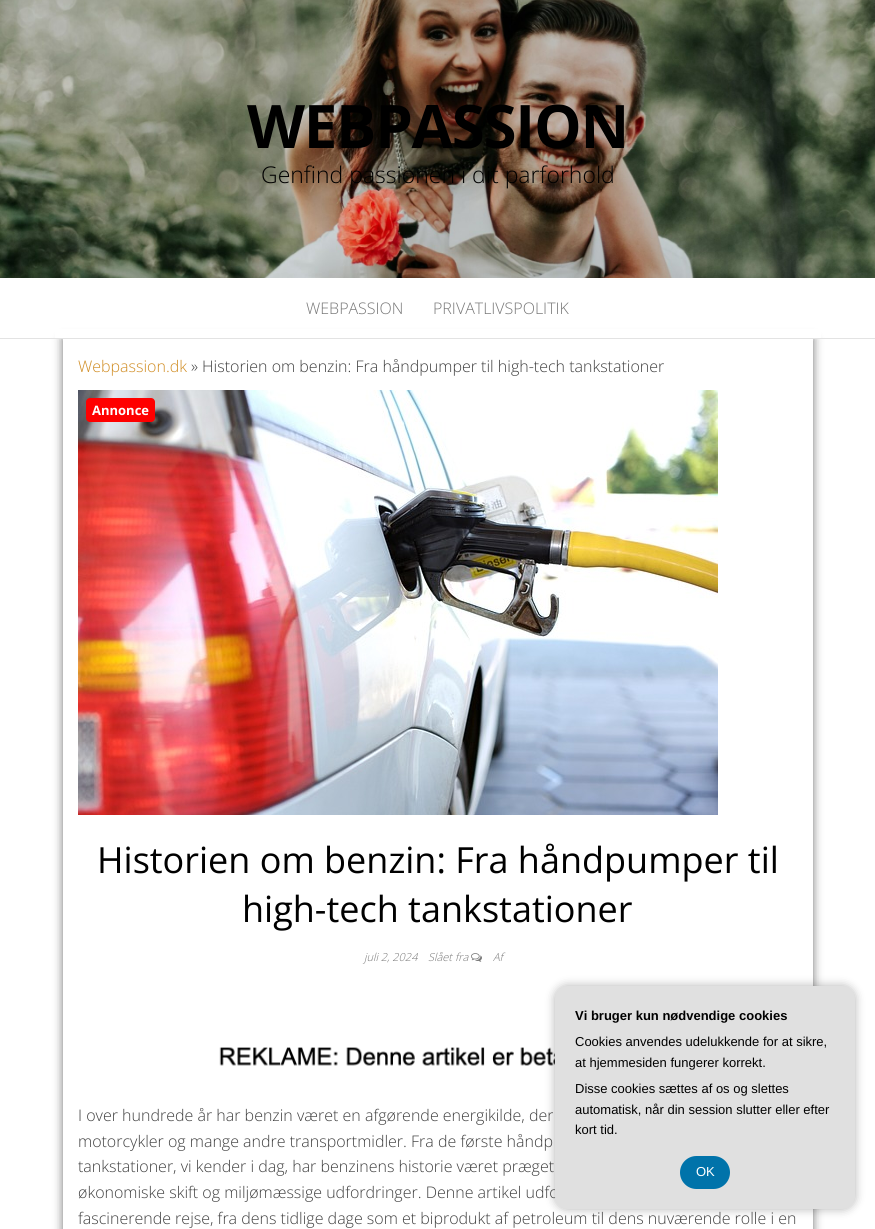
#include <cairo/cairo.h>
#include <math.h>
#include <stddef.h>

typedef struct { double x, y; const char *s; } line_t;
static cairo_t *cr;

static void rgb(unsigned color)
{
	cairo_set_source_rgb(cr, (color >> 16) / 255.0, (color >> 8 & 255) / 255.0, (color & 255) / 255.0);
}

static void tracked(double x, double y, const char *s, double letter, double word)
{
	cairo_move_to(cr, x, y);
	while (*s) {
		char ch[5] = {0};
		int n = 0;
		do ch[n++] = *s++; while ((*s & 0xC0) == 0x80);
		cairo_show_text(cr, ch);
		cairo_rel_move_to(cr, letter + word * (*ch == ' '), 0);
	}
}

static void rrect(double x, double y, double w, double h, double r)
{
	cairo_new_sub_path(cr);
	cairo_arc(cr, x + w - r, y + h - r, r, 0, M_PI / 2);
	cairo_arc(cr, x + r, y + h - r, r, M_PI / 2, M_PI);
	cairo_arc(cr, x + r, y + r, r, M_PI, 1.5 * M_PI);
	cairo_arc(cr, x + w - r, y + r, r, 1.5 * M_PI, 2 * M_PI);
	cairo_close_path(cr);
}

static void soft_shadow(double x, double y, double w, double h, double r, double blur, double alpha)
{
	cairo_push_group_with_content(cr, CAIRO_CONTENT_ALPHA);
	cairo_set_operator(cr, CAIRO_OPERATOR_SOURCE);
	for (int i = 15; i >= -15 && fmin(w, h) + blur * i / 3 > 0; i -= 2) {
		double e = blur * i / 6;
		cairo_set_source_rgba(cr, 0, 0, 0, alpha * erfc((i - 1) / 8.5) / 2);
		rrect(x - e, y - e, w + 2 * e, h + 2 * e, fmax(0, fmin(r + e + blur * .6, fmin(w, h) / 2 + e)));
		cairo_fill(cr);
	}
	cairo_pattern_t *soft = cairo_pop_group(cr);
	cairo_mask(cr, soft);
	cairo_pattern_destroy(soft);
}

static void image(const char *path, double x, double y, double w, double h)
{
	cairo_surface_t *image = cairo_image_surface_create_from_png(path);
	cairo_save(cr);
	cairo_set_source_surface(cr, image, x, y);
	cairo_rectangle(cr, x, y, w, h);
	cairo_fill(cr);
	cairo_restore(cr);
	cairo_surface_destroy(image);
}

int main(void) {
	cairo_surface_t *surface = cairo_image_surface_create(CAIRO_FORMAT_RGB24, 875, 1229);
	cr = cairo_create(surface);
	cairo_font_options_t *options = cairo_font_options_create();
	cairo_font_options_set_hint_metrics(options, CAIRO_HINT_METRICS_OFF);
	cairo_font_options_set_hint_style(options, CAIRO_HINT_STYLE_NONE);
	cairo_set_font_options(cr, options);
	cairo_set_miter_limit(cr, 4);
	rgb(0xffffff);
	cairo_paint(cr);
	image("img/1.png", 0, 0, 875, 278);
	cairo_save(cr);
	cairo_set_fill_rule(cr, CAIRO_FILL_RULE_EVEN_ODD);
	cairo_new_path(cr);
	cairo_move_to(cr, 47, 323);
	cairo_line_to(cr, 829, 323);
	cairo_line_to(cr, 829, 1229);
	cairo_line_to(cr, 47, 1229);
	cairo_close_path(cr);
	cairo_move_to(cr, 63, 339);
	cairo_line_to(cr, 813, 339);
	cairo_line_to(cr, 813, 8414);
	cairo_line_to(cr, 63, 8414);
	cairo_close_path(cr);
	cairo_clip(cr);
	rgb(0x000000);
	soft_shadow(63, 339, 750, 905, 0, 5, 0.55);
	cairo_restore(cr);
	rgb(0xffffff);
	cairo_rectangle(cr, 55, 329, 766, 9);
	cairo_fill(cr);
	rgb(0xe3e3e3);
	cairo_rectangle(cr, 0, 338, 875, 1);
	cairo_fill(cr);
	image("img/2.png", 78, 390, 640, 425);
	rgb(0xff0000);
	rrect(86, 398, 69, 24, 4);
	cairo_fill(cr);
	image("img/3.png", 471, 953, 11, 9);
	image("img/4.png", 219, 1047, 336, 19);
	rgb(0x000000);
	soft_shadow(555, 986, 300, 223, 12, 5, 0.3);
	cairo_select_font_face(cr, "Open Sans", CAIRO_FONT_SLANT_NORMAL, CAIRO_FONT_WEIGHT_BOLD);
	cairo_set_font_size(cr, 60);
	rgb(0x000000);
	tracked(247, 148, "WEBPASSION", -1.25, 0);
	cairo_select_font_face(cr, "Open Sans Light", CAIRO_FONT_SLANT_NORMAL, CAIRO_FONT_WEIGHT_NORMAL);
	cairo_set_font_size(cr, 23);
	cairo_move_to(cr, 261, 183);
	cairo_show_text(cr, "Genfind passionen i dit parforhold");
	cairo_set_font_size(cr, 16);
	rgb(0x777777);
	cairo_move_to(cr, 306, 314);
	cairo_show_text(cr, "WEBPASSION");
	cairo_move_to(cr, 433, 314);
	cairo_show_text(cr, "PRIVATLIVSPOLITIK");
	rgb(0xd08c22);
	cairo_move_to(cr, 78, 372);
	cairo_show_text(cr, "Webpassion.dk");
	rgb(0x404040);
	cairo_move_to(cr, 191, 372);
	cairo_show_text(cr, "» Historien om benzin: Fra håndpumper til high-tech tankstationer");
	cairo_select_font_face(cr, "Open Sans", CAIRO_FONT_SLANT_NORMAL, CAIRO_FONT_WEIGHT_BOLD);
	cairo_set_font_size(cr, 13);
	rgb(0xffffff);
	cairo_move_to(cr, 92, 415);
	cairo_show_text(cr, "Annonce");
	cairo_select_font_face(cr, "Open Sans", CAIRO_FONT_SLANT_NORMAL, CAIRO_FONT_WEIGHT_NORMAL);
	cairo_set_font_size(cr, 36);
	rgb(0x000000);
	cairo_move_to(cr, 97, 873);
	cairo_show_text(cr, "Historien om benzin: Fra håndpumper til");
	cairo_move_to(cr, 242, 922);
	cairo_show_text(cr, "high-tech tankstationer");
	cairo_select_font_face(cr, "Open Sans Light", CAIRO_FONT_SLANT_ITALIC, CAIRO_FONT_WEIGHT_NORMAL);
	cairo_set_font_size(cr, 11);
	rgb(0x777777);
	{
		static const line_t items[] = {
			{364, 961, "juli 2, 2024"},
			{428, 961, "Slået fra"},
			{493, 961, "Af"},
		};
		for (size_t i = 0; i < sizeof items / sizeof *items; i++) {
			cairo_move_to(cr, items[i].x, items[i].y);
			cairo_show_text(cr, items[i].s);
		}
	}
	cairo_select_font_face(cr, "Open Sans Light", CAIRO_FONT_SLANT_NORMAL, CAIRO_FONT_WEIGHT_NORMAL);
	cairo_set_font_size(cr, 16);
	rgb(0x404040);
	{
		static const line_t items[] = {
			{78, 1121, "I over hundrede år har benzin været en afgørende energikilde, der"},
			{78, 1147, "motorcykler og mange andre transportmidler. Fra de første håndp"},
			{78, 1172, "tankstationer, vi kender i dag, har benzinens historie været præget"},
			{78, 1198, "økonomiske skift og miljømæssige udfordringer. Denne artikel udfo"},
			{78, 1224, "fascinerende rejse, fra dens tidlige dage som et biprodukt af petroleum til dens nuværende rolle i en"},
		};
		for (size_t i = 0; i < sizeof items / sizeof *items; i++) {
			cairo_move_to(cr, items[i].x, items[i].y);
			cairo_show_text(cr, items[i].s);
		}
	}
	rgb(0xe0e0e0);
	rrect(555, 986, 300, 223, 12);
	cairo_fill(cr);
	cairo_select_font_face(cr, "Liberation Sans", CAIRO_FONT_SLANT_NORMAL, CAIRO_FONT_WEIGHT_BOLD);
	cairo_set_font_size(cr, 13);
	rgb(0x000000);
	cairo_move_to(cr, 575, 1020);
	cairo_show_text(cr, "Vi bruger kun nødvendige cookies");
	cairo_select_font_face(cr, "Liberation Sans", CAIRO_FONT_SLANT_NORMAL, CAIRO_FONT_WEIGHT_NORMAL);
	{
		static const line_t items[] = {
			{575, 1046, "Cookies anvendes udelukkende for at sikre,"},
			{575, 1067, "at hjemmesiden fungerer korrekt."},
			{575, 1093, "Disse cookies sættes af os og slettes"},
			{575, 1114, "automatisk, når din session slutter eller efter"},
			{575, 1134, "kort tid."},
		};
		for (size_t i = 0; i < sizeof items / sizeof *items; i++) {
			cairo_move_to(cr, items[i].x, items[i].y);
			cairo_show_text(cr, items[i].s);
		}
	}
	rgb(0x0073aa);
	rrect(680, 1156, 50, 33, 16.5);
	cairo_fill(cr);
	rgb(0xffffff);
	cairo_move_to(cr, 696, 1176);
	cairo_show_text(cr, "OK");
	cairo_surface_write_to_png(surface, "page.png");
	cairo_font_options_destroy(options);
	cairo_destroy(cr);
	cairo_surface_destroy(surface);
	return 0;
}
